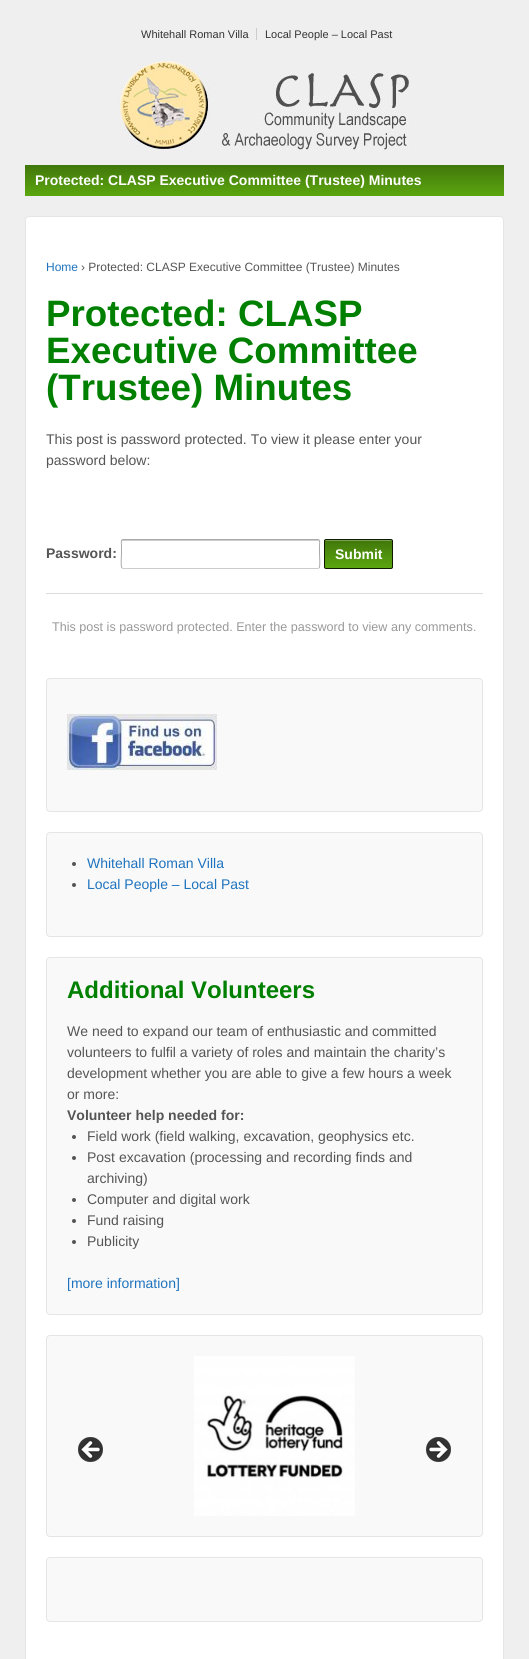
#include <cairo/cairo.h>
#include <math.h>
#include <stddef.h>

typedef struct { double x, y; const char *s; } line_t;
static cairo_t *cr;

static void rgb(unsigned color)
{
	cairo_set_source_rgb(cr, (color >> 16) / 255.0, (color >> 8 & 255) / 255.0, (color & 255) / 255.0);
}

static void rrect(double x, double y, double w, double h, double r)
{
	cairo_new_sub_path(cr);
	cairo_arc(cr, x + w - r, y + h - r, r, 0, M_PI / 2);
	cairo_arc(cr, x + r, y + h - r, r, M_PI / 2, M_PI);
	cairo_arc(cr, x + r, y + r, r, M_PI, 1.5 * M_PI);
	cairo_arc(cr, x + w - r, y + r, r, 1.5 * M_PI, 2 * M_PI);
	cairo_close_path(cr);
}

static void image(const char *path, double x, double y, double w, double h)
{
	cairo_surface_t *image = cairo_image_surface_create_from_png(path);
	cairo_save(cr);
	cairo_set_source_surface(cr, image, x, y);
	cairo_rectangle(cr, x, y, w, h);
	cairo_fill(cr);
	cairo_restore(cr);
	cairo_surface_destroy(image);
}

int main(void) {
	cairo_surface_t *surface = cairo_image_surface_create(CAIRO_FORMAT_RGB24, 529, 1659);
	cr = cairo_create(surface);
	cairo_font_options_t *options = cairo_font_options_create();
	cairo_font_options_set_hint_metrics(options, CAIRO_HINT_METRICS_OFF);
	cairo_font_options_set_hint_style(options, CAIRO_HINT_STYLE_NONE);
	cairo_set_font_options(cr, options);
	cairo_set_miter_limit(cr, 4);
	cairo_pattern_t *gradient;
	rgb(0xefefef);
	cairo_paint(cr);
	rgb(0xcccccc);
	cairo_rectangle(cr, 256, 28, 1, 12);
	cairo_fill(cr);
	image("img/1.png", 115, 55, 296, 96);
	gradient = cairo_pattern_create_linear(265, 196, 265, 165);
	cairo_pattern_add_color_stop_rgba(gradient, 0, 0.357, 0.651, 0.059, 1);
	cairo_pattern_add_color_stop_rgba(gradient, 1, 0.255, 0.467, 0.043, 1);
	cairo_set_source(cr, gradient);
	cairo_pattern_destroy(gradient);
	cairo_rectangle(cr, 25, 165, 479, 31);
	cairo_fill(cr);
	rgb(0xffffff);
	rrect(25.5, 216.5, 478, 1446, 3.5);
	cairo_fill_preserve(cr);
	rgb(0xe5e5e5);
	cairo_set_line_width(cr, 1);
	cairo_stroke(cr);
	rgb(0xcccccc);
	cairo_new_path(cr);
	cairo_move_to(cr, 123, 541);
	cairo_line_to(cr, 319, 541);
	cairo_line_to(cr, 319, 542);
	cairo_curve_to(cr, 319, 541, 319, 540, 318, 540);
	cairo_line_to(cr, 122, 540);
	cairo_line_to(cr, 122, 542);
	cairo_curve_to(cr, 122, 541, 122, 541, 123, 541);
	cairo_close_path(cr);
	cairo_fill(cr);
	cairo_new_path(cr);
	cairo_move_to(cr, 319, 568);
	cairo_line_to(cr, 318, 568.5);
	cairo_line_to(cr, 123, 568.5);
	cairo_line_to(cr, 122, 568);
	cairo_stroke(cr);
	cairo_new_path(cr);
	cairo_move_to(cr, 122, 568);
	cairo_curve_to(cr, 120.5, 566.5, 121.5, 556, 121.5, 554);
	cairo_line_to(cr, 121.5, 545.5);
	cairo_curve_to(cr, 121.5, 545, 120.5, 539.5, 123, 539.5);
	cairo_line_to(cr, 318, 539.5);
	cairo_curve_to(cr, 320.5, 539.5, 319.5, 545, 319.5, 545.5);
	cairo_line_to(cr, 319.5, 554);
	cairo_curve_to(cr, 319.5, 556, 320.5, 566.5, 319, 568);
	rgb(0xaaaaaa);
	cairo_stroke(cr);
	cairo_save(cr);
	rrect(324, 539, 69, 30, 2);
	cairo_clip(cr);
	gradient = cairo_pattern_create_linear(359, 568, 359, 540);
	cairo_pattern_add_color_stop_rgba(gradient, 0, 0.357, 0.651, 0.059, 1);
	cairo_pattern_add_color_stop_rgba(gradient, 1, 0.255, 0.467, 0.043, 1);
	cairo_set_source(cr, gradient);
	cairo_pattern_destroy(gradient);
	cairo_rectangle(cr, 324, 540, 69, 28);
	cairo_fill(cr);
	cairo_restore(cr);
	cairo_set_source_rgba(cr, 1, 1, 1, 0.3);
	cairo_new_path(cr);
	cairo_move_to(cr, 326, 541);
	cairo_line_to(cr, 391, 541);
	cairo_curve_to(cr, 392, 541, 392, 541, 392, 542);
	cairo_curve_to(cr, 392, 537, 384, 540, 380, 540);
	cairo_line_to(cr, 337, 540);
	cairo_curve_to(cr, 333, 540, 325, 537, 325, 542);
	cairo_curve_to(cr, 325, 541, 325, 541, 326, 541);
	cairo_close_path(cr);
	cairo_fill(cr);
	rrect(324.5, 539.5, 68, 29, 1.5);
	rgb(0x0e1a02);
	cairo_stroke(cr);
	rgb(0xdddddd);
	cairo_rectangle(cr, 46, 593, 437, 1);
	cairo_fill(cr);
	rgb(0xf9f9f9);
	rrect(46.5, 678.5, 436, 133, 3.5);
	cairo_fill_preserve(cr);
	rgb(0xe5e5e5);
	cairo_stroke(cr);
	image("img/2.png", 67, 714, 150, 56);
	rgb(0xf9f9f9);
	rrect(46.5, 832.5, 436, 104, 3.5);
	cairo_fill_preserve(cr);
	rgb(0xe5e5e5);
	cairo_stroke(cr);
	rgb(0x555555);
	cairo_arc(cr, 74, 864, 2, 0, 2 * M_PI);
	cairo_fill(cr);
	cairo_arc(cr, 74, 885, 2, 0, 2 * M_PI);
	cairo_fill(cr);
	rgb(0xf9f9f9);
	rrect(46.5, 957.5, 436, 357, 3.5);
	cairo_fill_preserve(cr);
	rgb(0xe5e5e5);
	cairo_stroke(cr);
	rgb(0x555555);
	cairo_arc(cr, 74, 1137, 2, 0, 2 * M_PI);
	cairo_fill(cr);
	cairo_arc(cr, 74, 1158, 2, 0, 2 * M_PI);
	cairo_fill(cr);
	cairo_arc(cr, 74, 1200, 2, 0, 2 * M_PI);
	cairo_fill(cr);
	cairo_arc(cr, 74, 1221, 2, 0, 2 * M_PI);
	cairo_fill(cr);
	cairo_arc(cr, 74, 1242, 2, 0, 2 * M_PI);
	cairo_fill(cr);
	rgb(0xf9f9f9);
	rrect(46.5, 1335.5, 436, 201, 3.5);
	cairo_fill_preserve(cr);
	rgb(0xe5e5e5);
	cairo_stroke(cr);
	image("img/3.png", 194, 1356, 161, 160);
	image("img/4.png", 78, 1437, 25, 25);
	image("img/5.png", 426, 1437, 25, 25);
	rgb(0xf9f9f9);
	rrect(46.5, 1557.5, 436, 64, 3.5);
	cairo_fill_preserve(cr);
	rgb(0xe5e5e5);
	cairo_stroke(cr);
	cairo_select_font_face(cr, "Liberation Sans", CAIRO_FONT_SLANT_NORMAL, CAIRO_FONT_WEIGHT_NORMAL);
	cairo_set_font_size(cr, 11);
	rgb(0x333333);
	cairo_move_to(cr, 141, 38);
	cairo_show_text(cr, "Whitehall Roman Villa");
	cairo_move_to(cr, 265, 38);
	cairo_show_text(cr, "Local People – Local Past");
	cairo_select_font_face(cr, "Liberation Sans", CAIRO_FONT_SLANT_NORMAL, CAIRO_FONT_WEIGHT_BOLD);
	cairo_set_font_size(cr, 14);
	rgb(0xffffff);
	cairo_move_to(cr, 35, 185);
	cairo_show_text(cr, "Protected: CLASP Executive Committee (Trustee) Minutes");
	cairo_select_font_face(cr, "Liberation Sans", CAIRO_FONT_SLANT_NORMAL, CAIRO_FONT_WEIGHT_NORMAL);
	cairo_set_font_size(cr, 12);
	rgb(0x1e73be);
	cairo_move_to(cr, 46, 271);
	cairo_show_text(cr, "Home");
	rgb(0x555555);
	cairo_move_to(cr, 81, 271);
	cairo_show_text(cr, "› Protected: CLASP Executive Committee (Trustee) Minutes");
	cairo_select_font_face(cr, "Liberation Sans", CAIRO_FONT_SLANT_NORMAL, CAIRO_FONT_WEIGHT_BOLD);
	cairo_set_font_size(cr, 36.75);
	rgb(0x008000);
	{
		static const line_t items[] = {
			{46, 326, "Protected: CLASP"},
			{46, 363, "Executive Committee"},
			{46, 400, "(Trustee) Minutes"},
		};
		for (size_t i = 0; i < sizeof items / sizeof *items; i++) {
			cairo_move_to(cr, items[i].x, items[i].y);
			cairo_show_text(cr, items[i].s);
		}
	}
	cairo_select_font_face(cr, "Liberation Sans", CAIRO_FONT_SLANT_NORMAL, CAIRO_FONT_WEIGHT_NORMAL);
	cairo_set_font_size(cr, 14);
	rgb(0x555555);
	cairo_move_to(cr, 46, 444);
	cairo_show_text(cr, "This post is password protected. To view it please enter your");
	cairo_move_to(cr, 46, 465);
	cairo_show_text(cr, "password below:");
	cairo_select_font_face(cr, "Liberation Sans", CAIRO_FONT_SLANT_NORMAL, CAIRO_FONT_WEIGHT_BOLD);
	cairo_move_to(cr, 46, 558);
	cairo_show_text(cr, "Password:");
	rgb(0xffffff);
	cairo_move_to(cr, 335, 559);
	cairo_show_text(cr, "Submit");
	cairo_select_font_face(cr, "Liberation Sans", CAIRO_FONT_SLANT_NORMAL, CAIRO_FONT_WEIGHT_NORMAL);
	cairo_set_font_size(cr, 12.6);
	rgb(0x999999);
	cairo_move_to(cr, 52, 631);
	cairo_show_text(cr, "This post is password protected. Enter the password to view any comments.");
	cairo_set_font_size(cr, 14);
	rgb(0x1e73be);
	cairo_move_to(cr, 87, 868);
	cairo_show_text(cr, "Whitehall Roman Villa");
	cairo_move_to(cr, 87, 889);
	cairo_show_text(cr, "Local People – Local Past");
	cairo_select_font_face(cr, "Liberation Sans", CAIRO_FONT_SLANT_NORMAL, CAIRO_FONT_WEIGHT_BOLD);
	cairo_set_font_size(cr, 24);
	rgb(0x008000);
	cairo_move_to(cr, 67, 998);
	cairo_show_text(cr, "Additional Volunteers");
	cairo_select_font_face(cr, "Liberation Sans", CAIRO_FONT_SLANT_NORMAL, CAIRO_FONT_WEIGHT_NORMAL);
	cairo_set_font_size(cr, 14);
	rgb(0x555555);
	{
		static const line_t items[] = {
			{67, 1036, "We need to expand our team of enthusiastic and committed"},
			{67, 1057, "volunteers to fulfil a variety of roles and maintain the charity’s"},
			{67, 1078, "development whether you are able to give a few hours a week"},
			{67, 1099, "or more:"},
		};
		for (size_t i = 0; i < sizeof items / sizeof *items; i++) {
			cairo_move_to(cr, items[i].x, items[i].y);
			cairo_show_text(cr, items[i].s);
		}
	}
	cairo_select_font_face(cr, "Liberation Sans", CAIRO_FONT_SLANT_NORMAL, CAIRO_FONT_WEIGHT_BOLD);
	cairo_move_to(cr, 67, 1120);
	cairo_show_text(cr, "Volunteer help needed for:");
	cairo_select_font_face(cr, "Liberation Sans", CAIRO_FONT_SLANT_NORMAL, CAIRO_FONT_WEIGHT_NORMAL);
	{
		static const line_t items[] = {
			{87, 1141, "Field work (field walking, excavation, geophysics etc."},
			{87, 1162, "Post excavation (processing and recording finds and"},
			{87, 1183, "archiving)"},
			{87, 1204, "Computer and digital work"},
			{87, 1225, "Fund raising"},
			{87, 1246, "Publicity"},
		};
		for (size_t i = 0; i < sizeof items / sizeof *items; i++) {
			cairo_move_to(cr, items[i].x, items[i].y);
			cairo_show_text(cr, items[i].s);
		}
	}
	rgb(0x1e73be);
	cairo_move_to(cr, 67, 1288);
	cairo_show_text(cr, "[more information]");
	cairo_surface_write_to_png(surface, "page.png");
	cairo_font_options_destroy(options);
	cairo_destroy(cr);
	cairo_surface_destroy(surface);
	return 0;
}
